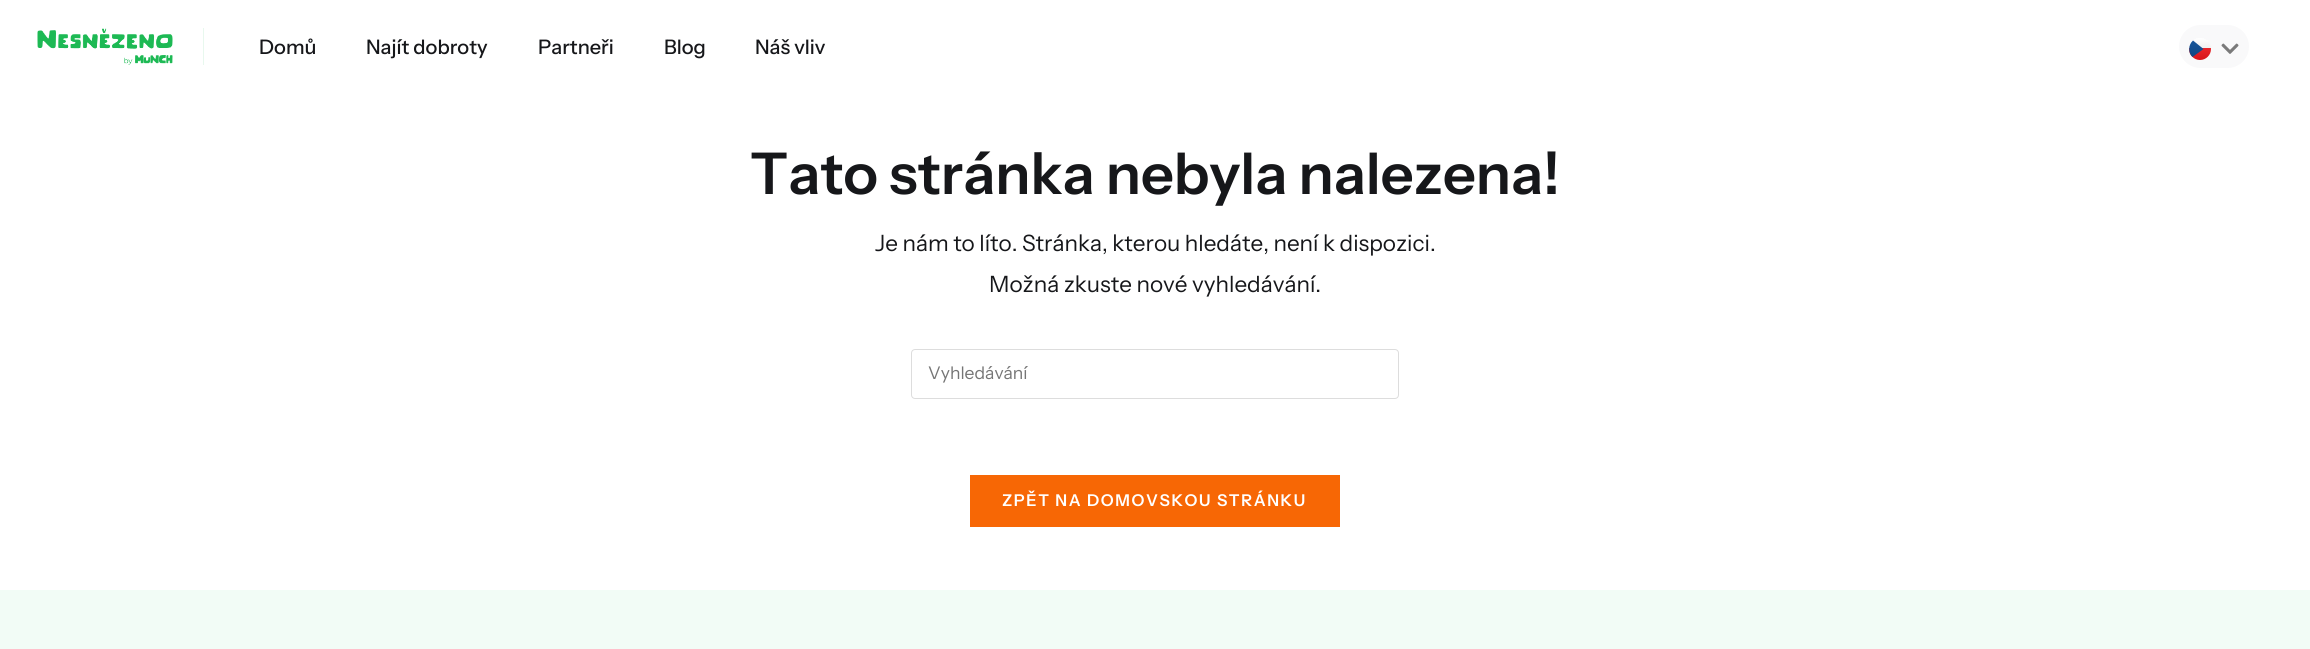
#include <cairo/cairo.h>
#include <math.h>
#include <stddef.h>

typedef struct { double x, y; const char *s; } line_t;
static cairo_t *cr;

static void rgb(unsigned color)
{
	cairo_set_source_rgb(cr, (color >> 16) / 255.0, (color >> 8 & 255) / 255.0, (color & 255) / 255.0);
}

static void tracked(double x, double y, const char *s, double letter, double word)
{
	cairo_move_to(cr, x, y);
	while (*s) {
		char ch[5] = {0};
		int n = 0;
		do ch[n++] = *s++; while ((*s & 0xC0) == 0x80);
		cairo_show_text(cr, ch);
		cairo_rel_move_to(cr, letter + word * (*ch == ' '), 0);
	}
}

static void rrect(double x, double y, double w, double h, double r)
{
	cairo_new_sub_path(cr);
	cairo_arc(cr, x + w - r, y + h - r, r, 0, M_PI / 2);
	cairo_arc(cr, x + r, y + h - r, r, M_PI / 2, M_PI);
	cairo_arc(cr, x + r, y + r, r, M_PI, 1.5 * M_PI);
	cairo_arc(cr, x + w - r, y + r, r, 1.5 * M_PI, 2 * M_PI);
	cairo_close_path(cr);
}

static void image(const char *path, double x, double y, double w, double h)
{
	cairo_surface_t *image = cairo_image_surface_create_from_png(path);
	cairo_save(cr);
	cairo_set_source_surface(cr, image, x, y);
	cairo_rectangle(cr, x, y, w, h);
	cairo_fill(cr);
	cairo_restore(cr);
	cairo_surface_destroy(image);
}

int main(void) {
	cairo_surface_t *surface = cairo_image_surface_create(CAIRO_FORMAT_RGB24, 2310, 649);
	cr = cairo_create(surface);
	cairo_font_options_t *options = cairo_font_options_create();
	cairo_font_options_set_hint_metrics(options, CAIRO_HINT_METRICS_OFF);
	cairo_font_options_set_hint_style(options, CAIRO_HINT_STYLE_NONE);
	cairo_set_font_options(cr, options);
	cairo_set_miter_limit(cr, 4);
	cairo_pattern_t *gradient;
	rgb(0xffffff);
	cairo_paint(cr);
	rgb(0xe8f8ee);
	cairo_rectangle(cr, 203, 28, 1, 37);
	cairo_fill(cr);
	image("img/1.png", 37, 28, 136, 37);
	rgb(0xf9f9fa);
	rrect(2179, 25, 70, 43, 21.5);
	cairo_fill(cr);
	gradient = cairo_pattern_create_linear(2204, 38, 2204, 60);
	cairo_pattern_add_color_stop_rgba(gradient, 0, 1, 1, 1, 1);
	cairo_pattern_add_color_stop_rgba(gradient, 1, 0.941, 0.941, 0.941, 1);
	cairo_set_source(cr, gradient);
	cairo_pattern_destroy(gradient);
	cairo_arc(cr, 2200, 49, 11, 0, 2 * M_PI);
	cairo_fill(cr);
	cairo_save(cr);
	rrect(2189, 38, 22, 22, 11);
	cairo_clip(cr);
	gradient = cairo_pattern_create_linear(2204, 38, 2204, 48);
	cairo_pattern_add_color_stop_rgba(gradient, 0, 1, 1, 1, 1);
	cairo_pattern_add_color_stop_rgba(gradient, 1, 0.941, 0.941, 0.941, 1);
	cairo_set_source(cr, gradient);
	cairo_pattern_destroy(gradient);
	cairo_rectangle(cr, 2189, 38, 22, 10);
	cairo_fill(cr);
	gradient = cairo_pattern_create_linear(2204, 48, 2204, 60);
	cairo_pattern_add_color_stop_rgba(gradient, 0, 0.91, 0.145, 0.165, 1);
	cairo_pattern_add_color_stop_rgba(gradient, 1, 0.843, 0.082, 0.102, 1);
	cairo_set_source(cr, gradient);
	cairo_pattern_destroy(gradient);
	cairo_new_path(cr);
	cairo_move_to(cr, 2189, 48);
	cairo_line_to(cr, 2211, 48);
	cairo_line_to(cr, 2211, 49);
	cairo_curve_to(cr, 2211, 55, 2206, 60, 2200, 60);
	cairo_curve_to(cr, 2194, 60, 2189, 55, 2189, 49);
	cairo_close_path(cr);
	cairo_fill(cr);
	cairo_restore(cr);
	gradient = cairo_pattern_create_linear(2196, 38, 2196, 60);
	cairo_pattern_add_color_stop_rgba(gradient, 0, 0.09, 0.341, 0.62, 1);
	cairo_pattern_add_color_stop_rgba(gradient, 1, 0.063, 0.271, 0.498, 1);
	cairo_set_source(cr, gradient);
	cairo_pattern_destroy(gradient);
	cairo_new_path(cr);
	cairo_move_to(cr, 2192.5, 57);
	cairo_curve_to(cr, 2188, 53, 2188, 45, 2193, 40.5);
	cairo_line_to(cr, 2203.5, 49);
	cairo_close_path(cr);
	cairo_fill(cr);
	image("img/2.png", 2221, 43, 18, 11);
	rrect(911.5, 349.5, 487, 49, 3.5);
	rgb(0xdddddd);
	cairo_set_line_width(cr, 1);
	cairo_stroke(cr);
	rgb(0xf76705);
	cairo_rectangle(cr, 970, 475, 370, 52);
	cairo_fill(cr);
	rgb(0xf2fcf6);
	cairo_rectangle(cr, 0, 590, 2310, 59);
	cairo_fill(cr);
	cairo_select_font_face(cr, "Instrument Sans Medium", CAIRO_FONT_SLANT_NORMAL, CAIRO_FONT_WEIGHT_NORMAL);
	cairo_set_font_size(cr, 20);
	rgb(0x16171a);
	{
		static const line_t items[] = {
			{259, 54, "Domů"},
			{366, 54, "Najít dobroty"},
			{538, 54, "Partneři"},
			{664, 54, "Blog"},
			{755, 54, "Náš vliv"},
		};
		for (size_t i = 0; i < sizeof items / sizeof *items; i++) {
			cairo_move_to(cr, items[i].x, items[i].y);
			cairo_show_text(cr, items[i].s);
		}
	}
	cairo_select_font_face(cr, "Instrument Sans SemiBold", CAIRO_FONT_SLANT_NORMAL, CAIRO_FONT_WEIGHT_NORMAL);
	cairo_set_font_size(cr, 57.5);
	cairo_move_to(cr, 750, 194);
	cairo_show_text(cr, "Tato stránka nebyla nalezena!");
	cairo_select_font_face(cr, "Instrument Sans", CAIRO_FONT_SLANT_NORMAL, CAIRO_FONT_WEIGHT_NORMAL);
	cairo_set_font_size(cr, 22.5);
	cairo_move_to(cr, 875, 251);
	cairo_show_text(cr, "Je nám to líto. Stránka, kterou hledáte, není k dispozici.");
	cairo_move_to(cr, 989, 292);
	cairo_show_text(cr, "Možná zkuste nové vyhledávání.");
	cairo_set_font_size(cr, 17.5);
	rgb(0x757575);
	cairo_move_to(cr, 928, 379);
	cairo_show_text(cr, "Vyhledávání");
	cairo_select_font_face(cr, "Instrument Sans SemiBold", CAIRO_FONT_SLANT_NORMAL, CAIRO_FONT_WEIGHT_NORMAL);
	cairo_set_font_size(cr, 16.25);
	rgb(0xffffff);
	tracked(1002, 506, "ZPĚT NA DOMOVSKOU STRÁNKU", 1.6, 0);
	cairo_surface_write_to_png(surface, "page.png");
	cairo_font_options_destroy(options);
	cairo_destroy(cr);
	cairo_surface_destroy(surface);
	return 0;
}
